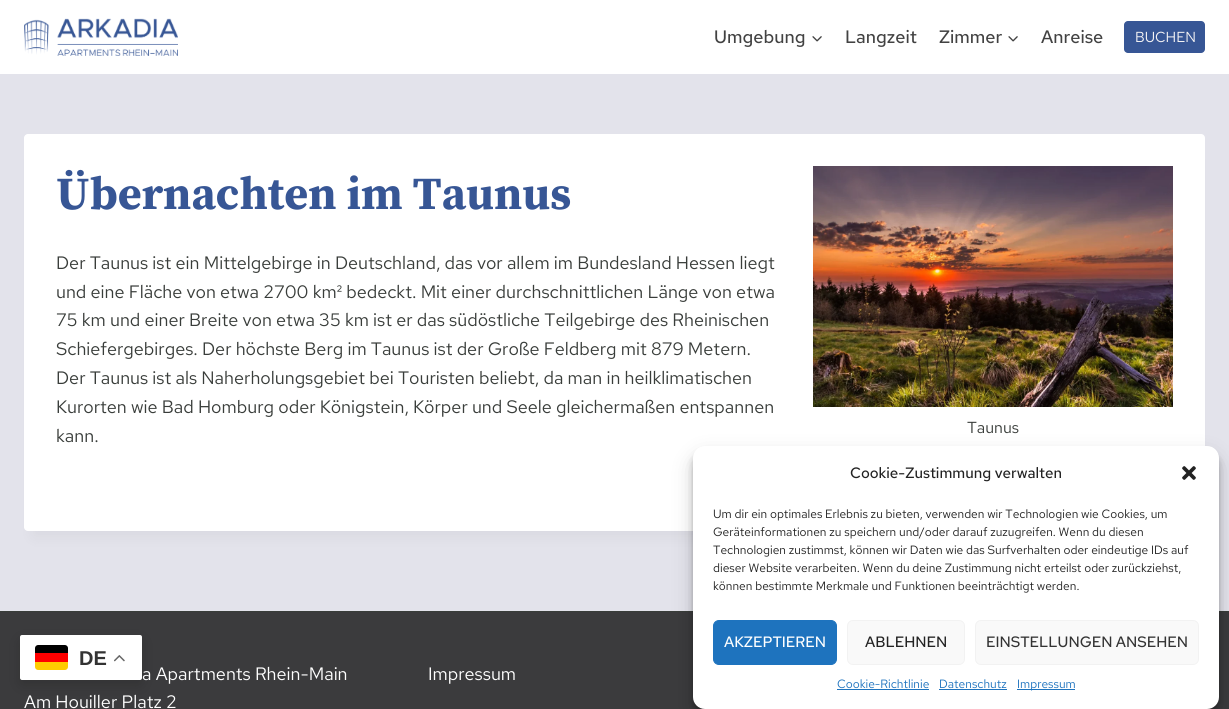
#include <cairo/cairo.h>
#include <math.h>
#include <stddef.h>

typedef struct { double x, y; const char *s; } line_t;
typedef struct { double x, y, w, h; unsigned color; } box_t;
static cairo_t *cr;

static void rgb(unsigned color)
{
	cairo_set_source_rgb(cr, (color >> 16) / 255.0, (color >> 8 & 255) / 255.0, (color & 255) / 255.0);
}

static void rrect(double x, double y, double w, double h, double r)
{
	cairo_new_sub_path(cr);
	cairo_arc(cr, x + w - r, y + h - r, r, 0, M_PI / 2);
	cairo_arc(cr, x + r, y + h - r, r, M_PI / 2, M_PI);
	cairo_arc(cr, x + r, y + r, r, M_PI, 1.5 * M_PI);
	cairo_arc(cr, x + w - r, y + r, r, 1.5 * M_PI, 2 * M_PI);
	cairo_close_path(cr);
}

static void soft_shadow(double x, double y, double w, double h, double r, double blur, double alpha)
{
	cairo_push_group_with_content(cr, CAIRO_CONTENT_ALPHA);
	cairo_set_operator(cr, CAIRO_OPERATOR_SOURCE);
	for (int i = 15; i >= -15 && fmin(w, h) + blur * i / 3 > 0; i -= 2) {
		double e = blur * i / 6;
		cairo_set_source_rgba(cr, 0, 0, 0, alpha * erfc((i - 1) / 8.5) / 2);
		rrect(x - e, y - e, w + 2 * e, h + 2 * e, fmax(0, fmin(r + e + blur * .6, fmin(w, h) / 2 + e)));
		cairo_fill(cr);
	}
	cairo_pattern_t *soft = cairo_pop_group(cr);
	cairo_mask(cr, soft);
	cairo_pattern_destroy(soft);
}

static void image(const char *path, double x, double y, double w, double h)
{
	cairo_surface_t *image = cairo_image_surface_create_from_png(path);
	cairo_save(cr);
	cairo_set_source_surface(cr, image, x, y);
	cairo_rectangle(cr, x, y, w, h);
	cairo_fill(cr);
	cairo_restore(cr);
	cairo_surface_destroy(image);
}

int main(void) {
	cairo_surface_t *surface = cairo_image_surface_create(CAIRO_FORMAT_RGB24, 1229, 709);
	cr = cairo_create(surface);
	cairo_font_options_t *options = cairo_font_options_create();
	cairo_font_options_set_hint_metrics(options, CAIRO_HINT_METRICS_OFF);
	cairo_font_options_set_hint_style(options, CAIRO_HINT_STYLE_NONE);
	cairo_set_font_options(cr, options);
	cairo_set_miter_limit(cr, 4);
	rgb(0xe3e3eb);
	cairo_paint(cr);
	rgb(0xffffff);
	cairo_rectangle(cr, 0, 0, 1229, 74);
	cairo_fill(cr);
	image("img/1.png", 24, 18, 154, 38);
	image("img/2.png", 812, 36, 10, 6);
	image("img/2.png", 1008, 36, 10, 6);
	rgb(0x375695);
	rrect(1124, 21, 81, 32, 4);
	cairo_fill(cr);
	rgb(0x000000);
	soft_shadow(34, 159, 1161, 377, 0, 7.5, 0.05);
	rgb(0xffffff);
	rrect(24, 134, 1181, 397, 4);
	cairo_fill(cr);
	image("img/3.png", 813, 166, 360, 241);
	rgb(0x3b3b3d);
	cairo_rectangle(cr, 0, 612, 1229, 97);
	cairo_fill(cr);
	rgb(0x393d3a);
	cairo_rectangle(cr, 0, 611, 1229, 1);
	cairo_fill(cr);
	rgb(0x000000);
	soft_shadow(20, 640, 122, 45, 2, 7.5, 0.15);
	rgb(0xffffff);
	rrect(20, 635, 122, 45, 2);
	cairo_fill(cr);
	rgb(0xffcc00);
	cairo_new_path(cr);
	cairo_move_to(cr, 35, 662);
	cairo_line_to(cr, 68, 662);
	cairo_line_to(cr, 68, 667);
	cairo_curve_to(cr, 68, 668.5, 66.5, 670, 65, 670);
	cairo_line_to(cr, 38, 670);
	cairo_curve_to(cr, 36.5, 670, 35, 668.5, 35, 667);
	cairo_close_path(cr);
	cairo_fill(cr);
	rgb(0x000000);
	cairo_new_path(cr);
	cairo_move_to(cr, 38, 645);
	cairo_line_to(cr, 65, 645);
	cairo_curve_to(cr, 66.5, 645, 68, 646.5, 68, 648);
	cairo_line_to(cr, 68, 653);
	cairo_line_to(cr, 35, 653);
	cairo_line_to(cr, 35, 648);
	cairo_curve_to(cr, 35, 646.5, 36.5, 645, 38, 645);
	cairo_close_path(cr);
	cairo_fill(cr);
	rgb(0xff0000);
	cairo_rectangle(cr, 35, 653, 33, 9);
	cairo_fill(cr);
	image("img/4.png", 114, 655, 11, 7);
	rgb(0x000000);
	soft_shadow(693, 452, 526, 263, 12, 3, 0.23);
	soft_shadow(693, 456, 526, 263, 12, 10, 0.19);
	rgb(0xffffff);
	rrect(693, 446, 526, 263, 12);
	cairo_fill(cr);
	image("img/5.png", 1182, 466, 14, 14);
	rgb(0x1e73be);
	rrect(713.5, 620.5, 123, 44, 5.5);
	cairo_fill_preserve(cr);
	cairo_set_line_width(cr, 1);
	cairo_stroke(cr);
	rgb(0xf9f9f9);
	rrect(847.5, 620.5, 117, 44, 5.5);
	cairo_fill_preserve(cr);
	rgb(0xf2f2f2);
	cairo_stroke(cr);
	rgb(0xf9f9f9);
	rrect(975.5, 620.5, 223, 44, 5.5);
	cairo_fill_preserve(cr);
	rgb(0xf2f2f2);
	cairo_stroke(cr);
	{
		static const box_t items[] = {
			{837, 689, 92, 1, 0x1e73be},
			{939, 689, 68, 1, 0x1e73be},
			{1017, 689, 58, 1, 0x1e73be},
		};
		for (size_t i = 0; i < sizeof items / sizeof *items; i++) {
			rgb(items[i].color);
			cairo_rectangle(cr, items[i].x, items[i].y, items[i].w, items[i].h);
			cairo_fill(cr);
		}
	}
	cairo_select_font_face(cr, "Red Hat Text Medium", CAIRO_FONT_SLANT_NORMAL, CAIRO_FONT_WEIGHT_NORMAL);
	cairo_set_font_size(cr, 18);
	rgb(0x424242);
	{
		static const line_t items[] = {
			{714, 43, "Umgebung"},
			{845, 43, "Langzeit"},
			{939, 43, "Zimmer"},
			{1041, 43, "Anreise"},
		};
		for (size_t i = 0; i < sizeof items / sizeof *items; i++) {
			cairo_move_to(cr, items[i].x, items[i].y);
			cairo_show_text(cr, items[i].s);
		}
	}
	cairo_select_font_face(cr, "Red Hat Text", CAIRO_FONT_SLANT_NORMAL, CAIRO_FONT_WEIGHT_NORMAL);
	cairo_set_font_size(cr, 14.5);
	rgb(0xf7f5f5);
	cairo_move_to(cr, 1135, 42);
	cairo_show_text(cr, "BUCHEN");
	cairo_select_font_face(cr, "Source Serif Pro", CAIRO_FONT_SLANT_NORMAL, CAIRO_FONT_WEIGHT_BOLD);
	cairo_set_font_size(cr, 46);
	rgb(0x375695);
	cairo_move_to(cr, 56, 209);
	cairo_show_text(cr, "Übernachten im Taunus");
	cairo_select_font_face(cr, "Red Hat Text", CAIRO_FONT_SLANT_NORMAL, CAIRO_FONT_WEIGHT_NORMAL);
	cairo_set_font_size(cr, 18);
	rgb(0x393d3a);
	{
		static const line_t items[] = {
			{56, 269, "Der Taunus ist ein Mittelgebirge in Deutschland, das vor allem im Bundesland Hessen liegt"},
			{56, 298, "und eine Fläche von etwa 2700 km² bedeckt. Mit einer durchschnittlichen Länge von etwa"},
			{56, 326, "75 km und einer Breite von etwa 35 km ist er das südöstliche Teilgebirge des Rheinischen"},
			{56, 355, "Schiefergebirges. Der höchste Berg im Taunus ist der Große Feldberg mit 879 Metern."},
			{56, 384, "Der Taunus ist als Naherholungsgebiet bei Touristen beliebt, da man in heilklimatischen"},
			{56, 413, "Kurorten wie Bad Homburg oder Königstein, Körper und Seele gleichermaßen entspannen"},
			{56, 442, "kann."},
		};
		for (size_t i = 0; i < sizeof items / sizeof *items; i++) {
			cairo_move_to(cr, items[i].x, items[i].y);
			cairo_show_text(cr, items[i].s);
		}
	}
	cairo_set_font_size(cr, 16);
	cairo_move_to(cr, 967, 433);
	cairo_show_text(cr, "Taunus");
	cairo_set_font_size(cr, 18);
	rgb(0xffffff);
	{
		static const line_t items[] = {
			{142, 680, "a Apartments Rhein-Main"},
			{24, 708, "Am Houiller Platz 2"},
			{428, 680, "Impressum"},
		};
		for (size_t i = 0; i < sizeof items / sizeof *items; i++) {
			cairo_move_to(cr, items[i].x, items[i].y);
			cairo_show_text(cr, items[i].s);
		}
	}
	cairo_select_font_face(cr, "Liberation Sans", CAIRO_FONT_SLANT_NORMAL, CAIRO_FONT_WEIGHT_BOLD);
	cairo_set_font_size(cr, 20);
	rgb(0x333333);
	cairo_move_to(cr, 79, 665);
	cairo_show_text(cr, "DE");
	cairo_select_font_face(cr, "Red Hat Text Medium", CAIRO_FONT_SLANT_NORMAL, CAIRO_FONT_WEIGHT_NORMAL);
	cairo_set_font_size(cr, 15);
	rgb(0x222222);
	cairo_move_to(cr, 850, 478);
	cairo_show_text(cr, "Cookie-Zustimmung verwalten");
	cairo_select_font_face(cr, "Red Hat Text", CAIRO_FONT_SLANT_NORMAL, CAIRO_FONT_WEIGHT_NORMAL);
	cairo_set_font_size(cr, 12);
	{
		static const line_t items[] = {
			{713, 518, "Um dir ein optimales Erlebnis zu bieten, verwenden wir Technologien wie Cookies, um"},
			{713, 536, "Geräteinformationen zu speichern und/oder darauf zuzugreifen. Wenn du diesen"},
			{713, 554, "Technologien zustimmst, können wir Daten wie das Surfverhalten oder eindeutige IDs auf"},
			{713, 572, "dieser Website verarbeiten. Wenn du deine Zustimmung nicht erteilst oder zurückziehst,"},
			{713, 590, "können bestimmte Merkmale und Funktionen beeinträchtigt werden."},
		};
		for (size_t i = 0; i < sizeof items / sizeof *items; i++) {
			cairo_move_to(cr, items[i].x, items[i].y);
			cairo_show_text(cr, items[i].s);
		}
	}
	cairo_select_font_face(cr, "Red Hat Text Medium", CAIRO_FONT_SLANT_NORMAL, CAIRO_FONT_WEIGHT_NORMAL);
	cairo_set_font_size(cr, 15);
	rgb(0xffffff);
	cairo_move_to(cr, 724, 647);
	cairo_show_text(cr, "AKZEPTIEREN");
	rgb(0x222222);
	cairo_move_to(cr, 865, 647);
	cairo_show_text(cr, "ABLEHNEN");
	rgb(0x333333);
	cairo_move_to(cr, 986, 647);
	cairo_show_text(cr, "EINSTELLUNGEN ANSEHEN");
	cairo_select_font_face(cr, "Red Hat Text", CAIRO_FONT_SLANT_NORMAL, CAIRO_FONT_WEIGHT_NORMAL);
	cairo_set_font_size(cr, 12);
	rgb(0x1e73be);
	{
		static const line_t items[] = {
			{837, 688, "Cookie-Richtlinie"},
			{939, 688, "Datenschutz"},
			{1017, 688, "Impressum"},
		};
		for (size_t i = 0; i < sizeof items / sizeof *items; i++) {
			cairo_move_to(cr, items[i].x, items[i].y);
			cairo_show_text(cr, items[i].s);
		}
	}
	cairo_surface_write_to_png(surface, "page.png");
	cairo_font_options_destroy(options);
	cairo_destroy(cr);
	cairo_surface_destroy(surface);
	return 0;
}
